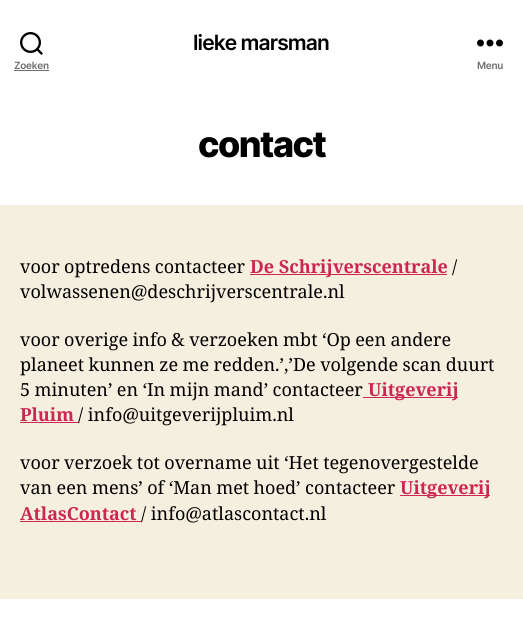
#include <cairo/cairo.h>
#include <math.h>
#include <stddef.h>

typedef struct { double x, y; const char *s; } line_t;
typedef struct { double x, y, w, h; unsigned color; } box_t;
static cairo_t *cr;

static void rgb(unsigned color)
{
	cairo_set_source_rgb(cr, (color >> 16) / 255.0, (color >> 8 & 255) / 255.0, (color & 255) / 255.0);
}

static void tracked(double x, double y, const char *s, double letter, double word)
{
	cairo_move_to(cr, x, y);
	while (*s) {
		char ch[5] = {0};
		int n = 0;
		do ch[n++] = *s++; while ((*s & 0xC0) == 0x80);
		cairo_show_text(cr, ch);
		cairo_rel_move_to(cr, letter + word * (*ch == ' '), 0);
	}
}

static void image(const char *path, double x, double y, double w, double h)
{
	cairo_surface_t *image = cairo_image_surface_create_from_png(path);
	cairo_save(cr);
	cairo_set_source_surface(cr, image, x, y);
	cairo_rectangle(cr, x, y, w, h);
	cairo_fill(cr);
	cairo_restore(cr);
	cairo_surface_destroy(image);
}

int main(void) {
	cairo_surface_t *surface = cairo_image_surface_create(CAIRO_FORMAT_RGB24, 523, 633);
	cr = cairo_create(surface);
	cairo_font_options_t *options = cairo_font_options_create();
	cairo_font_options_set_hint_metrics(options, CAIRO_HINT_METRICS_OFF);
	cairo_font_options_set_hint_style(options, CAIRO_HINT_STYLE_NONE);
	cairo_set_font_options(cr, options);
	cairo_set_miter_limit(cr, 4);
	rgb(0xf5efe0);
	cairo_paint(cr);
	rgb(0xffffff);
	cairo_rectangle(cr, 0, 0, 523, 205);
	cairo_fill(cr);
	image("img/1.png", 20, 32, 23, 23);
	rgb(0x6d6d6d);
	cairo_rectangle(cr, 14, 70, 35, 1);
	cairo_fill(cr);
	image("img/2.png", 477, 39, 26, 8);
	{
		static const box_t items[] = {
			{250, 274, 197, 1, 0xcd2653},
			{363, 397, 95, 1, 0xcd2653},
			{20, 422, 58, 1, 0xcd2653},
			{400, 495, 90, 1, 0xcd2653},
			{20, 521, 121, 1, 0xcd2653},
			{0, 599, 523, 34, 0xffffff},
		};
		for (size_t i = 0; i < sizeof items / sizeof *items; i++) {
			rgb(items[i].color);
			cairo_rectangle(cr, items[i].x, items[i].y, items[i].w, items[i].h);
			cairo_fill(cr);
		}
	}
	cairo_select_font_face(cr, "Inter SemiBold", CAIRO_FONT_SLANT_NORMAL, CAIRO_FONT_WEIGHT_NORMAL);
	cairo_set_font_size(cr, 21);
	rgb(0x000000);
	tracked(193, 50, "lieke marsman", -0.9, 0);
	cairo_set_font_size(cr, 10);
	rgb(0x6d6d6d);
	tracked(14, 69, "Zoeken", -0.25, 0);
	tracked(477, 69, "Menu", -0.25, 0);
	cairo_select_font_face(cr, "Inter ExtraBold", CAIRO_FONT_SLANT_NORMAL, CAIRO_FONT_WEIGHT_NORMAL);
	cairo_set_font_size(cr, 36);
	rgb(0x000000);
	tracked(198, 157, "contact", -1.5, 0);
	cairo_select_font_face(cr, "Noto Serif", CAIRO_FONT_SLANT_NORMAL, CAIRO_FONT_WEIGHT_NORMAL);
	cairo_set_font_size(cr, 18);
	tracked(20, 273, "voor optredens contacteer", 0, -0.25);
	cairo_select_font_face(cr, "Noto Serif", CAIRO_FONT_SLANT_NORMAL, CAIRO_FONT_WEIGHT_BOLD);
	rgb(0xcd2653);
	cairo_move_to(cr, 250, 273);
	cairo_show_text(cr, "De Schrijverscentrale");
	cairo_select_font_face(cr, "Noto Serif", CAIRO_FONT_SLANT_NORMAL, CAIRO_FONT_WEIGHT_NORMAL);
	rgb(0x000000);
	cairo_move_to(cr, 452, 273);
	cairo_show_text(cr, "/");
	cairo_move_to(cr, 20, 298);
	cairo_show_text(cr, "volwassenen@deschrijverscentrale.nl");
	{
		static const line_t items[] = {
			{20, 346, "voor overige info & verzoeken mbt ‘Op een andere"},
			{20, 371, "planeet kunnen ze me redden.’,’De volgende scan duurt"},
			{20, 396, "5 minuten’ en ‘In mijn mand’ contacteer"},
		};
		for (size_t i = 0; i < sizeof items / sizeof *items; i++) {
			tracked(items[i].x, items[i].y, items[i].s, 0, -0.25);
		}
	}
	cairo_select_font_face(cr, "Noto Serif", CAIRO_FONT_SLANT_NORMAL, CAIRO_FONT_WEIGHT_BOLD);
	rgb(0xcd2653);
	cairo_move_to(cr, 368, 396);
	cairo_show_text(cr, "Uitgeverij");
	cairo_move_to(cr, 20, 421);
	cairo_show_text(cr, "Pluim");
	cairo_select_font_face(cr, "Noto Serif", CAIRO_FONT_SLANT_NORMAL, CAIRO_FONT_WEIGHT_NORMAL);
	rgb(0x000000);
	cairo_move_to(cr, 78, 421);
	cairo_show_text(cr, "/ info@uitgeverijpluim.nl");
	tracked(20, 469, "voor verzoek tot overname uit ‘Het tegenovergestelde", 0, -0.25);
	tracked(20, 494, "van een mens’ of ‘Man met hoed’ contacteer", 0, -0.25);
	cairo_select_font_face(cr, "Noto Serif", CAIRO_FONT_SLANT_NORMAL, CAIRO_FONT_WEIGHT_BOLD);
	rgb(0xcd2653);
	cairo_move_to(cr, 400, 494);
	cairo_show_text(cr, "Uitgeverij");
	cairo_move_to(cr, 20, 520);
	cairo_show_text(cr, "AtlasContact");
	cairo_select_font_face(cr, "Noto Serif", CAIRO_FONT_SLANT_NORMAL, CAIRO_FONT_WEIGHT_NORMAL);
	rgb(0x000000);
	cairo_move_to(cr, 141, 520);
	cairo_show_text(cr, "/ info@atlascontact.nl");
	cairo_surface_write_to_png(surface, "page.png");
	cairo_font_options_destroy(options);
	cairo_destroy(cr);
	cairo_surface_destroy(surface);
	return 0;
}
